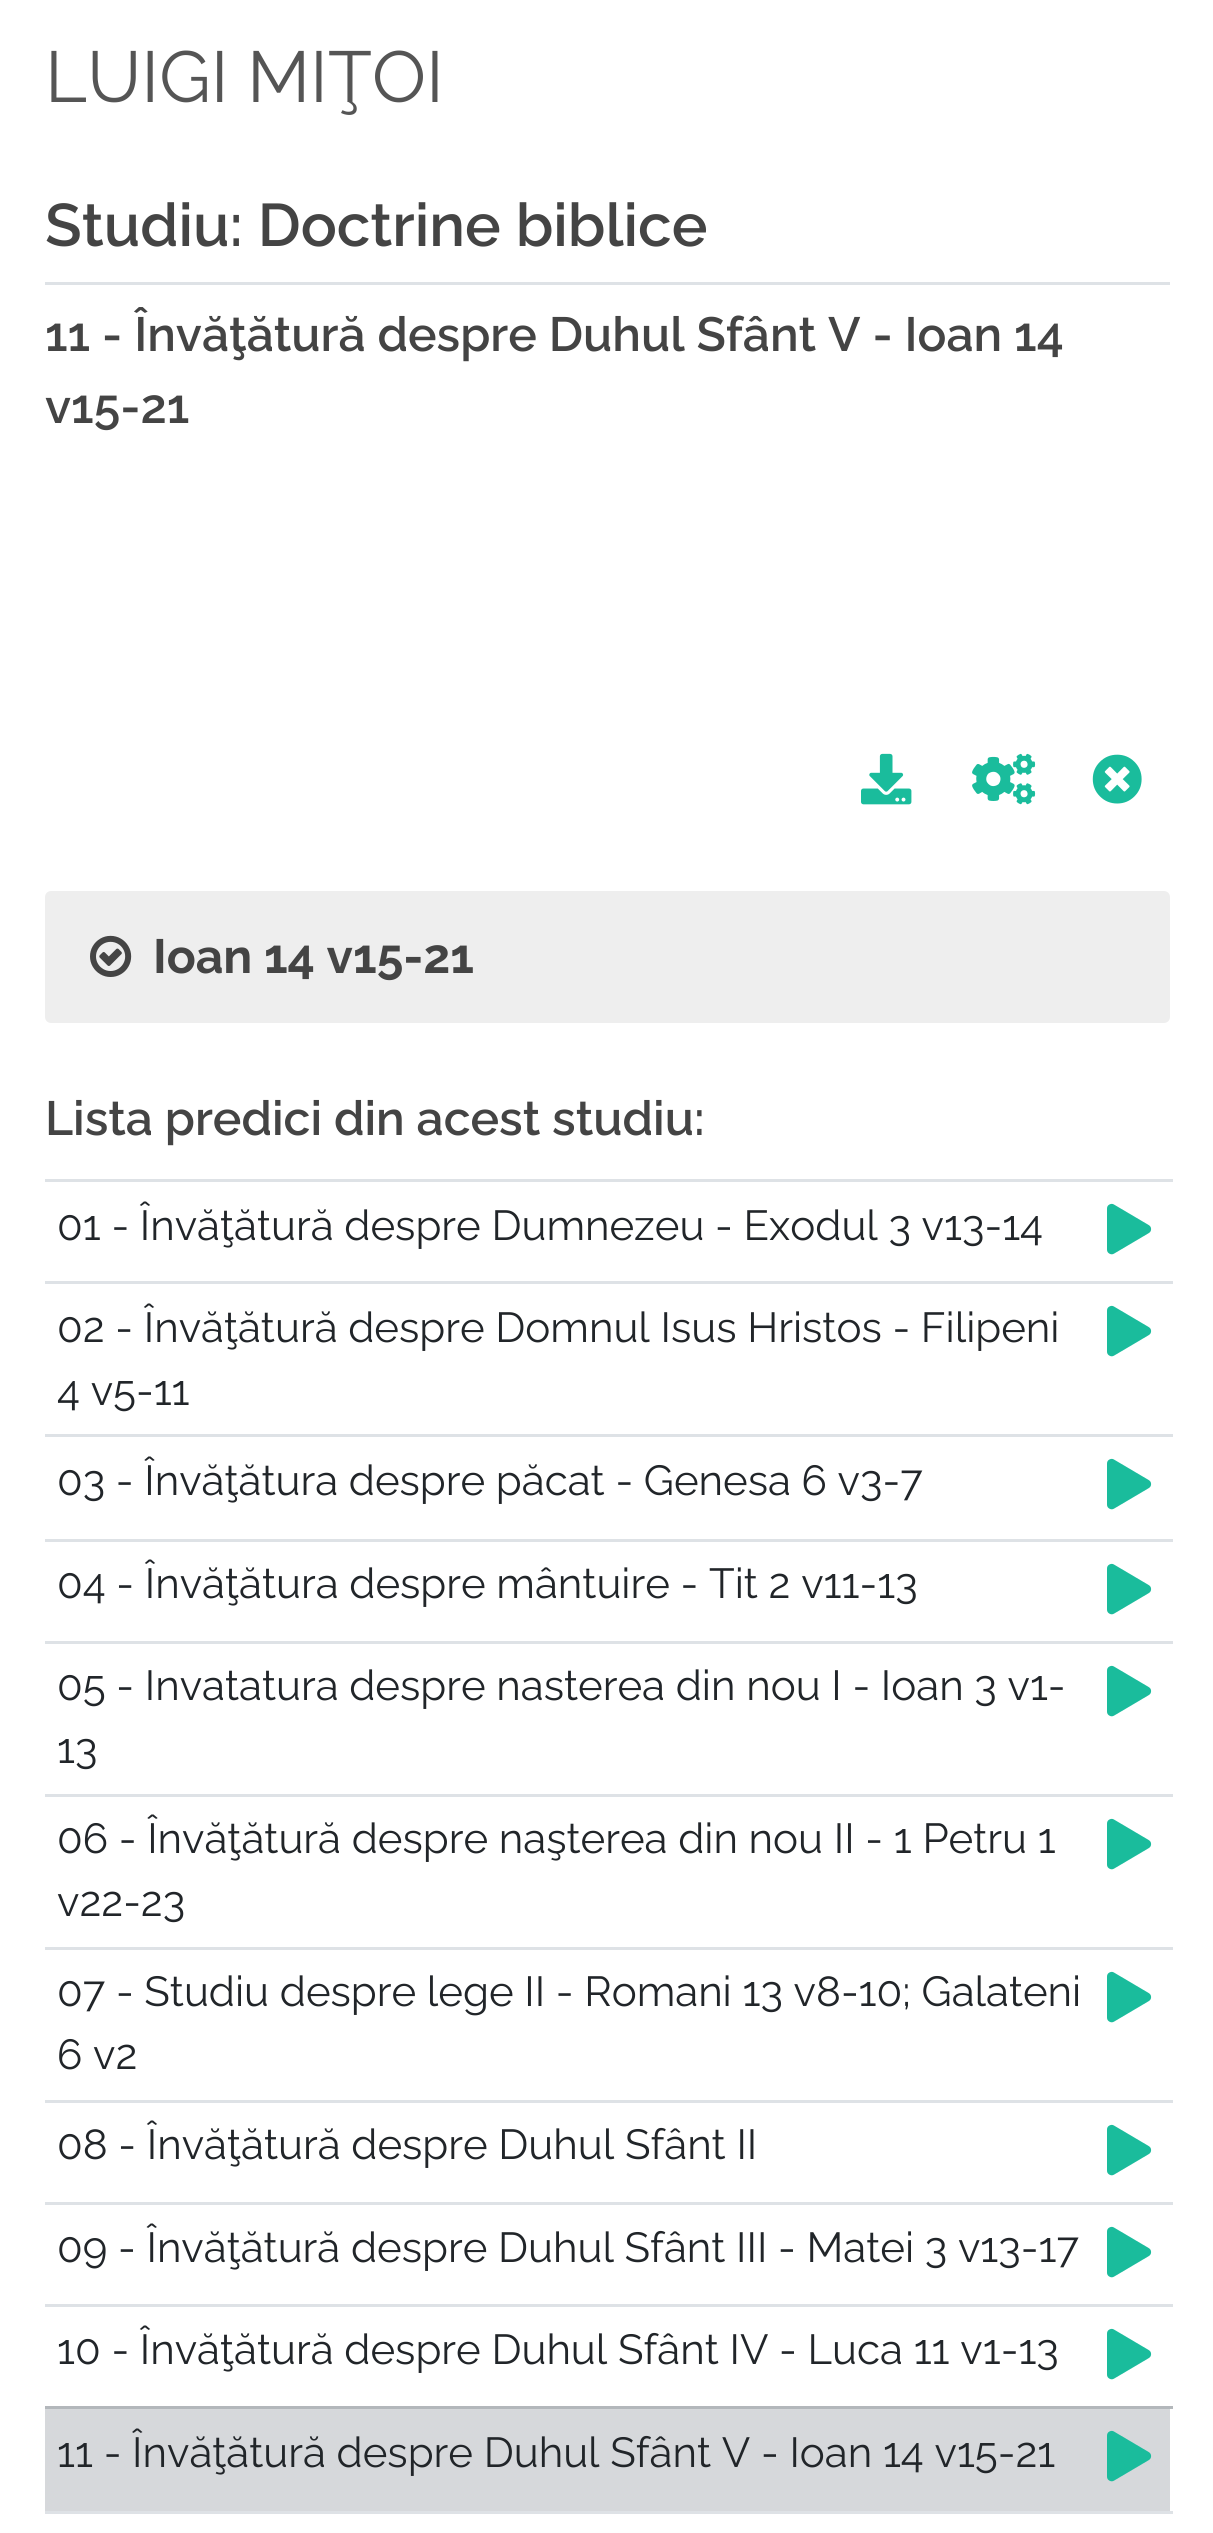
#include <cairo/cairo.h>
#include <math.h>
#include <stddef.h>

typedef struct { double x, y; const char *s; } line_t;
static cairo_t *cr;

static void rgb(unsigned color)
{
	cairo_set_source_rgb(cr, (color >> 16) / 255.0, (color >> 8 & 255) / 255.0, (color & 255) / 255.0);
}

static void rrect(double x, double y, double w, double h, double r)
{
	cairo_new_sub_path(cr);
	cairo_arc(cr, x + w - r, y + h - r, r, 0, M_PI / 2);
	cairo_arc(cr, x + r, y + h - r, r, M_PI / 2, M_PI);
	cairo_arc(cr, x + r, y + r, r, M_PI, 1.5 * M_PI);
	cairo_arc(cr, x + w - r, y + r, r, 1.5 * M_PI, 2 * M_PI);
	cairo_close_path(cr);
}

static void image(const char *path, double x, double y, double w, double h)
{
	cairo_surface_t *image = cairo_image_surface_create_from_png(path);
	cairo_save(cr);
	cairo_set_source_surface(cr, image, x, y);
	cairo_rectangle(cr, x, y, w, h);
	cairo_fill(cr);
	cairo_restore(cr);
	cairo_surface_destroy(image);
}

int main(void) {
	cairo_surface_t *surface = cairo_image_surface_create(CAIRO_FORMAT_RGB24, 1213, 2533);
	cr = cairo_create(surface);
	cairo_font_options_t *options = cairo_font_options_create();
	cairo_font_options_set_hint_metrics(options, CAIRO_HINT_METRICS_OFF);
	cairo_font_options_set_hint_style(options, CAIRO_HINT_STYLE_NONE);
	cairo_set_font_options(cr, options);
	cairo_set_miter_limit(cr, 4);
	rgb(0xffffff);
	cairo_paint(cr);
	rgb(0xdee2e6);
	cairo_rectangle(cr, 45, 282, 1125, 3);
	cairo_fill(cr);
	image("img/1.png", 861, 753, 51, 52);
	image("img/2.png", 972, 753, 64, 52);
	image("img/3.png", 1092, 754, 50, 50);
	rgb(0xeeeeee);
	rrect(45, 891, 1125, 132, 6);
	cairo_fill(cr);
	image("img/4.png", 90, 935, 42, 42);
	rgb(0xdee2e6);
	cairo_rectangle(cr, 45, 1179, 1128, 3);
	cairo_fill(cr);
	image("img/5.png", 1107, 1203, 45, 52);
	cairo_rectangle(cr, 45, 1281, 1128, 3);
	cairo_fill(cr);
	image("img/5.png", 1107, 1305, 45, 52);
	cairo_rectangle(cr, 45, 1434, 1128, 3);
	cairo_fill(cr);
	image("img/5.png", 1107, 1458, 45, 52);
	cairo_rectangle(cr, 45, 1539, 1128, 3);
	cairo_fill(cr);
	image("img/5.png", 1107, 1563, 45, 52);
	cairo_rectangle(cr, 45, 1641, 1128, 3);
	cairo_fill(cr);
	image("img/5.png", 1107, 1665, 45, 52);
	cairo_rectangle(cr, 45, 1794, 1128, 3);
	cairo_fill(cr);
	image("img/5.png", 1107, 1818, 45, 52);
	cairo_rectangle(cr, 45, 1947, 1128, 3);
	cairo_fill(cr);
	image("img/5.png", 1107, 1971, 45, 52);
	cairo_rectangle(cr, 45, 2100, 1128, 3);
	cairo_fill(cr);
	image("img/5.png", 1107, 2124, 45, 52);
	cairo_rectangle(cr, 45, 2202, 1128, 3);
	cairo_fill(cr);
	image("img/5.png", 1107, 2226, 45, 52);
	cairo_rectangle(cr, 45, 2304, 1128, 3);
	cairo_fill(cr);
	image("img/5.png", 1107, 2328, 45, 52);
	rgb(0xd6d8db);
	cairo_rectangle(cr, 45, 2409, 1125, 102);
	cairo_fill(cr);
	rgb(0xb3b7bb);
	cairo_rectangle(cr, 45, 2406, 1128, 3);
	cairo_fill(cr);
	image("img/6.png", 1107, 2430, 45, 52);
	rgb(0xdee2e6);
	cairo_rectangle(cr, 45, 2511, 1128, 3);
	cairo_fill(cr);
	cairo_select_font_face(cr, "Raleway", CAIRO_FONT_SLANT_NORMAL, CAIRO_FONT_WEIGHT_NORMAL);
	cairo_set_font_size(cr, 72);
	rgb(0x555555);
	cairo_move_to(cr, 45, 102);
	cairo_show_text(cr, "LUIGI MIŢOI");
	cairo_select_font_face(cr, "Raleway SemiBold", CAIRO_FONT_SLANT_NORMAL, CAIRO_FONT_WEIGHT_NORMAL);
	cairo_set_font_size(cr, 60);
	rgb(0x444444);
	cairo_move_to(cr, 45, 246);
	cairo_show_text(cr, "Studiu: Doctrine biblice");
	cairo_set_font_size(cr, 48);
	cairo_move_to(cr, 45, 351);
	cairo_show_text(cr, "11 - Învăţătură despre Duhul Sfânt V - Ioan 14");
	cairo_move_to(cr, 45, 423);
	cairo_show_text(cr, "v15-21");
	cairo_select_font_face(cr, "Raleway", CAIRO_FONT_SLANT_NORMAL, CAIRO_FONT_WEIGHT_BOLD);
	cairo_move_to(cr, 153, 973);
	cairo_show_text(cr, "Ioan 14 v15-21");
	cairo_select_font_face(cr, "Raleway SemiBold", CAIRO_FONT_SLANT_NORMAL, CAIRO_FONT_WEIGHT_NORMAL);
	cairo_move_to(cr, 45, 1135);
	cairo_show_text(cr, "Lista predici din acest studiu:");
	cairo_select_font_face(cr, "Raleway", CAIRO_FONT_SLANT_NORMAL, CAIRO_FONT_WEIGHT_NORMAL);
	cairo_set_font_size(cr, 42);
	rgb(0x212529);
	{
		static const line_t items[] = {
			{57, 1240, "01 - Învăţătură despre Dumnezeu - Exodul 3 v13-14"},
			{57, 1342, "02 - Învăţătură despre Domnul Isus Hristos - Filipeni"},
			{57, 1405, "4 v5-11"},
			{57, 1495, "03 - Învăţătura despre păcat - Genesa 6 v3-7"},
			{57, 1598, "04 - Învăţătura despre mântuire - Tit 2 v11-13"},
			{57, 1700, "05 - Invatatura despre nasterea din nou I - Ioan 3 v1-"},
			{57, 1763, "13"},
			{57, 1853, "06 - Învăţătură despre naşterea din nou II - 1 Petru 1"},
			{57, 1916, "v22-23"},
			{57, 2006, "07 - Studiu despre lege II - Romani 13 v8-10; Galateni"},
			{57, 2069, "6 v2"},
			{57, 2159, "08 - Învăţătură despre Duhul Sfânt II"},
			{57, 2262, "09 - Învăţătură despre Duhul Sfânt III - Matei 3 v13-17"},
			{57, 2364, "10 - Învăţătură despre Duhul Sfânt IV - Luca 11 v1-13"},
			{57, 2467, "11 - Învăţătură despre Duhul Sfânt V - Ioan 14 v15-21"},
		};
		for (size_t i = 0; i < sizeof items / sizeof *items; i++) {
			cairo_move_to(cr, items[i].x, items[i].y);
			cairo_show_text(cr, items[i].s);
		}
	}
	cairo_surface_write_to_png(surface, "page.png");
	cairo_font_options_destroy(options);
	cairo_destroy(cr);
	cairo_surface_destroy(surface);
	return 0;
}
